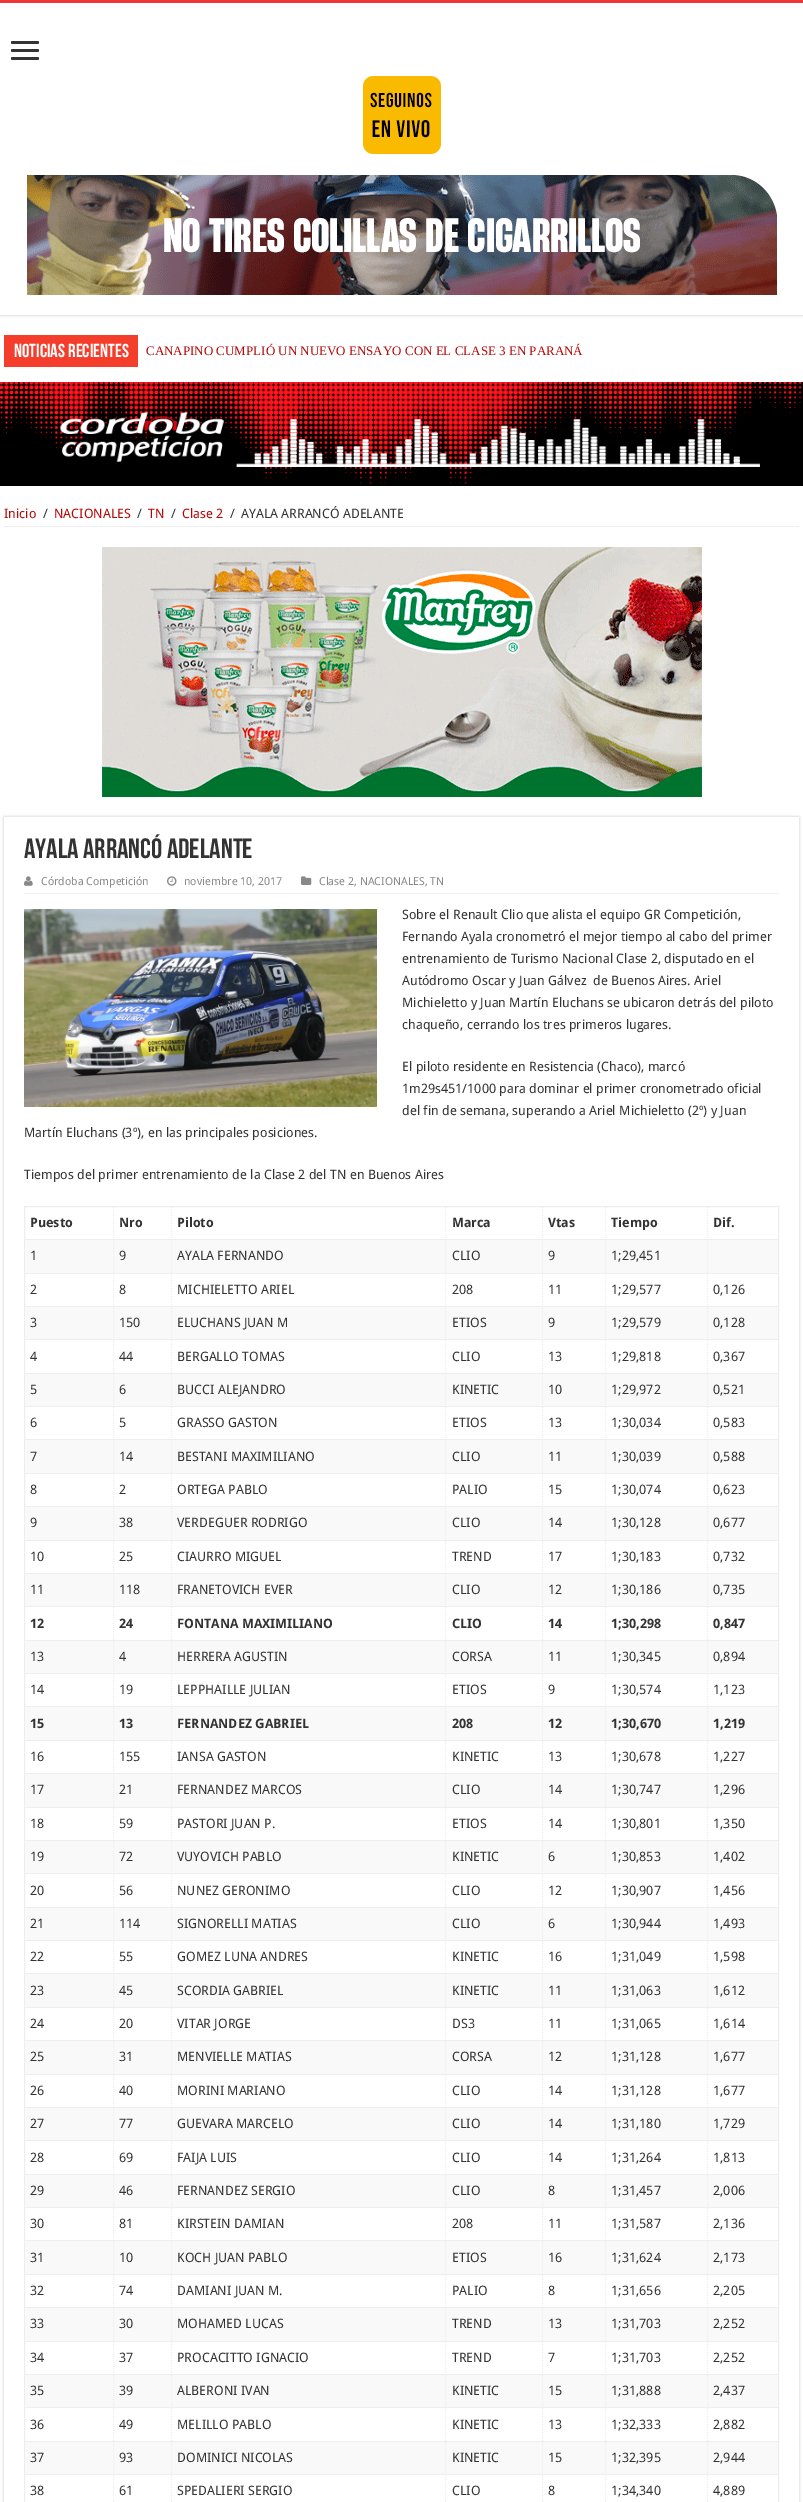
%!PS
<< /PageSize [803 2502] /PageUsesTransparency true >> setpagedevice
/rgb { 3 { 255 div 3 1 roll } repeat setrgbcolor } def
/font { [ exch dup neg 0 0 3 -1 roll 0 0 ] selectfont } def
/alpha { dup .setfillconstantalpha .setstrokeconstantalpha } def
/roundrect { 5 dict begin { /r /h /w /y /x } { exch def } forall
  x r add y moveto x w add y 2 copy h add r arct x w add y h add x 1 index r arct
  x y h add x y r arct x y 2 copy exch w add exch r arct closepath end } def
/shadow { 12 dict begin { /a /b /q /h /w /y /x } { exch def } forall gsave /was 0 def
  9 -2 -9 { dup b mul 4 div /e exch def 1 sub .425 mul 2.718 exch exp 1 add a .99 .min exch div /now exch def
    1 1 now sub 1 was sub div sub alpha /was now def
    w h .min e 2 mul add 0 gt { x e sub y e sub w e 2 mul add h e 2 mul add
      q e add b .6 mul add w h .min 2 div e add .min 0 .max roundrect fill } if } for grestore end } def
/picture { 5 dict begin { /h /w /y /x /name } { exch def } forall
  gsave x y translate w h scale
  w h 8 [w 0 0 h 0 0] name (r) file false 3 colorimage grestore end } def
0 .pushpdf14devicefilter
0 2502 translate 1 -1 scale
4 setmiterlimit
255 255 255 rgb
0 0 803 2502 rectfill
gsave
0 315 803 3 rectclip
202 202 202 rgb
0 0 803 315 0 1.5 1 shadow
grestore
239 54 54 rgb
0 0 803 3 rectfill
51 51 51 rgb
11 41 28 3 1.5 roundrect fill
11 49 28 3 1.5 roundrect fill
11 57 28 3 1.5 roundrect fill
(img/1.rgb) 363 76 78 78 picture
(img/2.rgb) 27 175 750 120 picture
244 61 42 rgb
4 335 134 32 rectfill
(img/3.rgb) 0 382 803 104 picture
238 238 238 rgb
4 526 795 1 rectfill
(img/4.rgb) 102 547 600 250 picture
gsave
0 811 moveto 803 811 lineto 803 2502 lineto 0 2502 lineto closepath 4 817 moveto 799 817 lineto 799 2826 lineto 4 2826 lineto closepath eoclip newpath
202 202 202 rgb
4 817 795 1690 0 1.5 1 shadow
grestore
242 242 242 rgb
24 893 755 1 rectfill
(img/5.rgb) 24 876 9 10 picture
(img/6.rgb) 167 876 10 10 picture
(img/7.rgb) 301 876 11 9 picture
(img/8.rgb) 24 909 353 198 picture
238 238 238 rgb
24.5 1206.5 754 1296 rectstroke
[1 1] 0 setdash
113.5 1207 moveto 113.5 1240 lineto stroke
25 1239 89 1 rectfill
171.5 1207 moveto 171.5 1240 lineto stroke
114 1239 58 1 rectfill
445.5 1207 moveto 445.5 1240 lineto stroke
172 1239 274 1 rectfill
542.5 1207 moveto 542.5 1240 lineto stroke
446 1239 97 1 rectfill
605.5 1207 moveto 605.5 1240 lineto stroke
543 1239 63 1 rectfill
707.5 1207 moveto 707.5 1240 lineto stroke
606 1239 172 1 rectfill
249 249 249 rgb
25 1240 753 33 rectfill
238 238 238 rgb
113.5 1240 moveto 113.5 1274 lineto stroke
25 1273 753 1 rectfill
171.5 1240 moveto 171.5 1274 lineto stroke
445.5 1240 moveto 445.5 1274 lineto stroke
542.5 1240 moveto 542.5 1274 lineto stroke
605.5 1240 moveto 605.5 1274 lineto stroke
707.5 1240 moveto 707.5 1274 lineto stroke
113.5 1274 moveto 113.5 1307 lineto stroke
25 1306 89 1 rectfill
171.5 1274 moveto 171.5 1307 lineto stroke
114 1306 58 1 rectfill
445.5 1274 moveto 445.5 1307 lineto stroke
172 1306 274 1 rectfill
542.5 1274 moveto 542.5 1307 lineto stroke
446 1306 97 1 rectfill
605.5 1274 moveto 605.5 1307 lineto stroke
543 1306 63 1 rectfill
707.5 1274 moveto 707.5 1307 lineto stroke
606 1306 172 1 rectfill
249 249 249 rgb
25 1307 753 32 rectfill
238 238 238 rgb
113.5 1307 moveto 113.5 1340 lineto stroke
25 1339 89 1 rectfill
171.5 1307 moveto 171.5 1340 lineto stroke
114 1339 58 1 rectfill
445.5 1307 moveto 445.5 1340 lineto stroke
172 1339 274 1 rectfill
542.5 1307 moveto 542.5 1340 lineto stroke
446 1339 97 1 rectfill
605.5 1307 moveto 605.5 1340 lineto stroke
543 1339 63 1 rectfill
707.5 1307 moveto 707.5 1340 lineto stroke
606 1339 172 1 rectfill
113.5 1340 moveto 113.5 1374 lineto stroke
25 1373 753 1 rectfill
171.5 1340 moveto 171.5 1374 lineto stroke
445.5 1340 moveto 445.5 1374 lineto stroke
542.5 1340 moveto 542.5 1374 lineto stroke
605.5 1340 moveto 605.5 1374 lineto stroke
707.5 1340 moveto 707.5 1374 lineto stroke
249 249 249 rgb
25 1374 753 32 rectfill
238 238 238 rgb
113.5 1374 moveto 113.5 1407 lineto stroke
25 1406 89 1 rectfill
171.5 1374 moveto 171.5 1407 lineto stroke
114 1406 58 1 rectfill
445.5 1374 moveto 445.5 1407 lineto stroke
172 1406 274 1 rectfill
542.5 1374 moveto 542.5 1407 lineto stroke
446 1406 97 1 rectfill
605.5 1374 moveto 605.5 1407 lineto stroke
543 1406 63 1 rectfill
707.5 1374 moveto 707.5 1407 lineto stroke
606 1406 172 1 rectfill
113.5 1407 moveto 113.5 1440 lineto stroke
25 1439 89 1 rectfill
171.5 1407 moveto 171.5 1440 lineto stroke
114 1439 58 1 rectfill
445.5 1407 moveto 445.5 1440 lineto stroke
172 1439 274 1 rectfill
542.5 1407 moveto 542.5 1440 lineto stroke
446 1439 97 1 rectfill
605.5 1407 moveto 605.5 1440 lineto stroke
543 1439 63 1 rectfill
707.5 1407 moveto 707.5 1440 lineto stroke
606 1439 172 1 rectfill
249 249 249 rgb
25 1440 753 33 rectfill
238 238 238 rgb
113.5 1440 moveto 113.5 1474 lineto stroke
25 1473 753 1 rectfill
171.5 1440 moveto 171.5 1474 lineto stroke
445.5 1440 moveto 445.5 1474 lineto stroke
542.5 1440 moveto 542.5 1474 lineto stroke
605.5 1440 moveto 605.5 1474 lineto stroke
707.5 1440 moveto 707.5 1474 lineto stroke
113.5 1474 moveto 113.5 1507 lineto stroke
25 1506 89 1 rectfill
171.5 1474 moveto 171.5 1507 lineto stroke
114 1506 58 1 rectfill
445.5 1474 moveto 445.5 1507 lineto stroke
172 1506 274 1 rectfill
542.5 1474 moveto 542.5 1507 lineto stroke
446 1506 97 1 rectfill
605.5 1474 moveto 605.5 1507 lineto stroke
543 1506 63 1 rectfill
707.5 1474 moveto 707.5 1507 lineto stroke
606 1506 172 1 rectfill
249 249 249 rgb
25 1507 753 33 rectfill
238 238 238 rgb
113.5 1507 moveto 113.5 1541 lineto stroke
25 1540 753 1 rectfill
171.5 1507 moveto 171.5 1541 lineto stroke
445.5 1507 moveto 445.5 1541 lineto stroke
542.5 1507 moveto 542.5 1541 lineto stroke
605.5 1507 moveto 605.5 1541 lineto stroke
707.5 1507 moveto 707.5 1541 lineto stroke
113.5 1541 moveto 113.5 1574 lineto stroke
25 1573 89 1 rectfill
171.5 1541 moveto 171.5 1574 lineto stroke
114 1573 58 1 rectfill
445.5 1541 moveto 445.5 1574 lineto stroke
172 1573 274 1 rectfill
542.5 1541 moveto 542.5 1574 lineto stroke
446 1573 97 1 rectfill
605.5 1541 moveto 605.5 1574 lineto stroke
543 1573 63 1 rectfill
707.5 1541 moveto 707.5 1574 lineto stroke
606 1573 172 1 rectfill
249 249 249 rgb
25 1574 753 32 rectfill
238 238 238 rgb
113.5 1574 moveto 113.5 1607 lineto stroke
25 1606 89 1 rectfill
171.5 1574 moveto 171.5 1607 lineto stroke
114 1606 58 1 rectfill
445.5 1574 moveto 445.5 1607 lineto stroke
172 1606 274 1 rectfill
542.5 1574 moveto 542.5 1607 lineto stroke
446 1606 97 1 rectfill
605.5 1574 moveto 605.5 1607 lineto stroke
543 1606 63 1 rectfill
707.5 1574 moveto 707.5 1607 lineto stroke
606 1606 172 1 rectfill
113.5 1607 moveto 113.5 1641 lineto stroke
25 1640 753 1 rectfill
171.5 1607 moveto 171.5 1641 lineto stroke
445.5 1607 moveto 445.5 1641 lineto stroke
542.5 1607 moveto 542.5 1641 lineto stroke
605.5 1607 moveto 605.5 1641 lineto stroke
707.5 1607 moveto 707.5 1641 lineto stroke
249 249 249 rgb
25 1641 753 32 rectfill
238 238 238 rgb
113.5 1641 moveto 113.5 1674 lineto stroke
25 1673 89 1 rectfill
171.5 1641 moveto 171.5 1674 lineto stroke
114 1673 58 1 rectfill
445.5 1641 moveto 445.5 1674 lineto stroke
172 1673 274 1 rectfill
542.5 1641 moveto 542.5 1674 lineto stroke
446 1673 97 1 rectfill
605.5 1641 moveto 605.5 1674 lineto stroke
543 1673 63 1 rectfill
707.5 1641 moveto 707.5 1674 lineto stroke
606 1673 172 1 rectfill
113.5 1674 moveto 113.5 1707 lineto stroke
25 1706 89 1 rectfill
171.5 1674 moveto 171.5 1707 lineto stroke
114 1706 58 1 rectfill
445.5 1674 moveto 445.5 1707 lineto stroke
172 1706 274 1 rectfill
542.5 1674 moveto 542.5 1707 lineto stroke
446 1706 97 1 rectfill
605.5 1674 moveto 605.5 1707 lineto stroke
543 1706 63 1 rectfill
707.5 1674 moveto 707.5 1707 lineto stroke
606 1706 172 1 rectfill
249 249 249 rgb
25 1707 753 33 rectfill
238 238 238 rgb
113.5 1707 moveto 113.5 1741 lineto stroke
25 1740 753 1 rectfill
171.5 1707 moveto 171.5 1741 lineto stroke
445.5 1707 moveto 445.5 1741 lineto stroke
542.5 1707 moveto 542.5 1741 lineto stroke
605.5 1707 moveto 605.5 1741 lineto stroke
707.5 1707 moveto 707.5 1741 lineto stroke
113.5 1741 moveto 113.5 1774 lineto stroke
25 1773 89 1 rectfill
171.5 1741 moveto 171.5 1774 lineto stroke
114 1773 58 1 rectfill
445.5 1741 moveto 445.5 1774 lineto stroke
172 1773 274 1 rectfill
542.5 1741 moveto 542.5 1774 lineto stroke
446 1773 97 1 rectfill
605.5 1741 moveto 605.5 1774 lineto stroke
543 1773 63 1 rectfill
707.5 1741 moveto 707.5 1774 lineto stroke
606 1773 172 1 rectfill
249 249 249 rgb
25 1774 753 33 rectfill
238 238 238 rgb
113.5 1774 moveto 113.5 1808 lineto stroke
25 1807 753 1 rectfill
171.5 1774 moveto 171.5 1808 lineto stroke
445.5 1774 moveto 445.5 1808 lineto stroke
542.5 1774 moveto 542.5 1808 lineto stroke
605.5 1774 moveto 605.5 1808 lineto stroke
707.5 1774 moveto 707.5 1808 lineto stroke
113.5 1808 moveto 113.5 1841 lineto stroke
25 1840 89 1 rectfill
171.5 1808 moveto 171.5 1841 lineto stroke
114 1840 58 1 rectfill
445.5 1808 moveto 445.5 1841 lineto stroke
172 1840 274 1 rectfill
542.5 1808 moveto 542.5 1841 lineto stroke
446 1840 97 1 rectfill
605.5 1808 moveto 605.5 1841 lineto stroke
543 1840 63 1 rectfill
707.5 1808 moveto 707.5 1841 lineto stroke
606 1840 172 1 rectfill
249 249 249 rgb
25 1841 753 32 rectfill
238 238 238 rgb
113.5 1841 moveto 113.5 1874 lineto stroke
25 1873 89 1 rectfill
171.5 1841 moveto 171.5 1874 lineto stroke
114 1873 58 1 rectfill
445.5 1841 moveto 445.5 1874 lineto stroke
172 1873 274 1 rectfill
542.5 1841 moveto 542.5 1874 lineto stroke
446 1873 97 1 rectfill
605.5 1841 moveto 605.5 1874 lineto stroke
543 1873 63 1 rectfill
707.5 1841 moveto 707.5 1874 lineto stroke
606 1873 172 1 rectfill
113.5 1874 moveto 113.5 1908 lineto stroke
25 1907 753 1 rectfill
171.5 1874 moveto 171.5 1908 lineto stroke
445.5 1874 moveto 445.5 1908 lineto stroke
542.5 1874 moveto 542.5 1908 lineto stroke
605.5 1874 moveto 605.5 1908 lineto stroke
707.5 1874 moveto 707.5 1908 lineto stroke
249 249 249 rgb
25 1908 753 32 rectfill
238 238 238 rgb
113.5 1908 moveto 113.5 1941 lineto stroke
25 1940 89 1 rectfill
171.5 1908 moveto 171.5 1941 lineto stroke
114 1940 58 1 rectfill
445.5 1908 moveto 445.5 1941 lineto stroke
172 1940 274 1 rectfill
542.5 1908 moveto 542.5 1941 lineto stroke
446 1940 97 1 rectfill
605.5 1908 moveto 605.5 1941 lineto stroke
543 1940 63 1 rectfill
707.5 1908 moveto 707.5 1941 lineto stroke
606 1940 172 1 rectfill
113.5 1941 moveto 113.5 1974 lineto stroke
25 1973 89 1 rectfill
171.5 1941 moveto 171.5 1974 lineto stroke
114 1973 58 1 rectfill
445.5 1941 moveto 445.5 1974 lineto stroke
172 1973 274 1 rectfill
542.5 1941 moveto 542.5 1974 lineto stroke
446 1973 97 1 rectfill
605.5 1941 moveto 605.5 1974 lineto stroke
543 1973 63 1 rectfill
707.5 1941 moveto 707.5 1974 lineto stroke
606 1973 172 1 rectfill
249 249 249 rgb
25 1974 753 33 rectfill
238 238 238 rgb
113.5 1974 moveto 113.5 2008 lineto stroke
25 2007 753 1 rectfill
171.5 1974 moveto 171.5 2008 lineto stroke
445.5 1974 moveto 445.5 2008 lineto stroke
542.5 1974 moveto 542.5 2008 lineto stroke
605.5 1974 moveto 605.5 2008 lineto stroke
707.5 1974 moveto 707.5 2008 lineto stroke
113.5 2008 moveto 113.5 2041 lineto stroke
25 2040 89 1 rectfill
171.5 2008 moveto 171.5 2041 lineto stroke
114 2040 58 1 rectfill
445.5 2008 moveto 445.5 2041 lineto stroke
172 2040 274 1 rectfill
542.5 2008 moveto 542.5 2041 lineto stroke
446 2040 97 1 rectfill
605.5 2008 moveto 605.5 2041 lineto stroke
543 2040 63 1 rectfill
707.5 2008 moveto 707.5 2041 lineto stroke
606 2040 172 1 rectfill
249 249 249 rgb
25 2041 753 33 rectfill
238 238 238 rgb
113.5 2041 moveto 113.5 2075 lineto stroke
25 2074 753 1 rectfill
171.5 2041 moveto 171.5 2075 lineto stroke
445.5 2041 moveto 445.5 2075 lineto stroke
542.5 2041 moveto 542.5 2075 lineto stroke
605.5 2041 moveto 605.5 2075 lineto stroke
707.5 2041 moveto 707.5 2075 lineto stroke
113.5 2075 moveto 113.5 2108 lineto stroke
25 2107 89 1 rectfill
171.5 2075 moveto 171.5 2108 lineto stroke
114 2107 58 1 rectfill
445.5 2075 moveto 445.5 2108 lineto stroke
172 2107 274 1 rectfill
542.5 2075 moveto 542.5 2108 lineto stroke
446 2107 97 1 rectfill
605.5 2075 moveto 605.5 2108 lineto stroke
543 2107 63 1 rectfill
707.5 2075 moveto 707.5 2108 lineto stroke
606 2107 172 1 rectfill
249 249 249 rgb
25 2108 753 32 rectfill
238 238 238 rgb
113.5 2108 moveto 113.5 2141 lineto stroke
25 2140 89 1 rectfill
171.5 2108 moveto 171.5 2141 lineto stroke
114 2140 58 1 rectfill
445.5 2108 moveto 445.5 2141 lineto stroke
172 2140 274 1 rectfill
542.5 2108 moveto 542.5 2141 lineto stroke
446 2140 97 1 rectfill
605.5 2108 moveto 605.5 2141 lineto stroke
543 2140 63 1 rectfill
707.5 2108 moveto 707.5 2141 lineto stroke
606 2140 172 1 rectfill
113.5 2141 moveto 113.5 2175 lineto stroke
25 2174 753 1 rectfill
171.5 2141 moveto 171.5 2175 lineto stroke
445.5 2141 moveto 445.5 2175 lineto stroke
542.5 2141 moveto 542.5 2175 lineto stroke
605.5 2141 moveto 605.5 2175 lineto stroke
707.5 2141 moveto 707.5 2175 lineto stroke
249 249 249 rgb
25 2175 753 32 rectfill
238 238 238 rgb
113.5 2175 moveto 113.5 2208 lineto stroke
25 2207 89 1 rectfill
171.5 2175 moveto 171.5 2208 lineto stroke
114 2207 58 1 rectfill
445.5 2175 moveto 445.5 2208 lineto stroke
172 2207 274 1 rectfill
542.5 2175 moveto 542.5 2208 lineto stroke
446 2207 97 1 rectfill
605.5 2175 moveto 605.5 2208 lineto stroke
543 2207 63 1 rectfill
707.5 2175 moveto 707.5 2208 lineto stroke
606 2207 172 1 rectfill
113.5 2208 moveto 113.5 2241 lineto stroke
25 2240 89 1 rectfill
171.5 2208 moveto 171.5 2241 lineto stroke
114 2240 58 1 rectfill
445.5 2208 moveto 445.5 2241 lineto stroke
172 2240 274 1 rectfill
542.5 2208 moveto 542.5 2241 lineto stroke
446 2240 97 1 rectfill
605.5 2208 moveto 605.5 2241 lineto stroke
543 2240 63 1 rectfill
707.5 2208 moveto 707.5 2241 lineto stroke
606 2240 172 1 rectfill
249 249 249 rgb
25 2241 753 33 rectfill
238 238 238 rgb
113.5 2241 moveto 113.5 2275 lineto stroke
25 2274 753 1 rectfill
171.5 2241 moveto 171.5 2275 lineto stroke
445.5 2241 moveto 445.5 2275 lineto stroke
542.5 2241 moveto 542.5 2275 lineto stroke
605.5 2241 moveto 605.5 2275 lineto stroke
707.5 2241 moveto 707.5 2275 lineto stroke
113.5 2275 moveto 113.5 2308 lineto stroke
25 2307 89 1 rectfill
171.5 2275 moveto 171.5 2308 lineto stroke
114 2307 58 1 rectfill
445.5 2275 moveto 445.5 2308 lineto stroke
172 2307 274 1 rectfill
542.5 2275 moveto 542.5 2308 lineto stroke
446 2307 97 1 rectfill
605.5 2275 moveto 605.5 2308 lineto stroke
543 2307 63 1 rectfill
707.5 2275 moveto 707.5 2308 lineto stroke
606 2307 172 1 rectfill
249 249 249 rgb
25 2308 753 33 rectfill
238 238 238 rgb
113.5 2308 moveto 113.5 2342 lineto stroke
25 2341 753 1 rectfill
171.5 2308 moveto 171.5 2342 lineto stroke
445.5 2308 moveto 445.5 2342 lineto stroke
542.5 2308 moveto 542.5 2342 lineto stroke
605.5 2308 moveto 605.5 2342 lineto stroke
707.5 2308 moveto 707.5 2342 lineto stroke
113.5 2342 moveto 113.5 2375 lineto stroke
25 2374 89 1 rectfill
171.5 2342 moveto 171.5 2375 lineto stroke
114 2374 58 1 rectfill
445.5 2342 moveto 445.5 2375 lineto stroke
172 2374 274 1 rectfill
542.5 2342 moveto 542.5 2375 lineto stroke
446 2374 97 1 rectfill
605.5 2342 moveto 605.5 2375 lineto stroke
543 2374 63 1 rectfill
707.5 2342 moveto 707.5 2375 lineto stroke
606 2374 172 1 rectfill
249 249 249 rgb
25 2375 753 32 rectfill
238 238 238 rgb
113.5 2375 moveto 113.5 2408 lineto stroke
25 2407 89 1 rectfill
171.5 2375 moveto 171.5 2408 lineto stroke
114 2407 58 1 rectfill
445.5 2375 moveto 445.5 2408 lineto stroke
172 2407 274 1 rectfill
542.5 2375 moveto 542.5 2408 lineto stroke
446 2407 97 1 rectfill
605.5 2375 moveto 605.5 2408 lineto stroke
543 2407 63 1 rectfill
707.5 2375 moveto 707.5 2408 lineto stroke
606 2407 172 1 rectfill
113.5 2408 moveto 113.5 2442 lineto stroke
25 2441 753 1 rectfill
171.5 2408 moveto 171.5 2442 lineto stroke
445.5 2408 moveto 445.5 2442 lineto stroke
542.5 2408 moveto 542.5 2442 lineto stroke
605.5 2408 moveto 605.5 2442 lineto stroke
707.5 2408 moveto 707.5 2442 lineto stroke
249 249 249 rgb
25 2442 753 32 rectfill
238 238 238 rgb
113.5 2442 moveto 113.5 2475 lineto stroke
25 2474 89 1 rectfill
171.5 2442 moveto 171.5 2475 lineto stroke
114 2474 58 1 rectfill
445.5 2442 moveto 445.5 2475 lineto stroke
172 2474 274 1 rectfill
542.5 2442 moveto 542.5 2475 lineto stroke
446 2474 97 1 rectfill
605.5 2442 moveto 605.5 2475 lineto stroke
543 2474 63 1 rectfill
707.5 2442 moveto 707.5 2475 lineto stroke
606 2474 172 1 rectfill
113.5 2475 moveto 113.5 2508 lineto 171.5 2475 moveto 171.5 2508 lineto stroke
445.5 2475 moveto 445.5 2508 lineto stroke
542.5 2475 moveto 542.5 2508 lineto stroke
605.5 2475 moveto 605.5 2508 lineto stroke
707.5 2475 moveto 707.5 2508 lineto stroke
/BebasNeue-Bold 18.75 font
255 255 255 rgb
14 357 moveto (Noticias recientes) show
/LiberationSerif-Regular 13 font
181 6 6 rgb
146 355 moveto (CANAPINO CUMPLIÓ UN NUEVO ENSAYO CON EL CLASE 3 EN PARANÁ) show
/DroidSans-Regular 13 font
4 518 moveto (Inicio) show
51 51 51 rgb
43 518 moveto (/) show
181 6 6 rgb
54 518 moveto (NACIONALES) show
51 51 51 rgb
137 518 moveto (/) show
181 6 6 rgb
148 518 moveto (TN) show
51 51 51 rgb
171 518 moveto (/) show
181 6 6 rgb
182 518 moveto (Clase 2) show
51 51 51 rgb
230 518 moveto (/) show
241 518 moveto (AYALA ARRANCÓ ADELANTE) show
/BebasNeue-Bold 28 font
24 858 moveto (AYALA ARRANCÓ ADELANTE) show
/DroidSans-Regular 11 font
136 136 136 rgb
[
  [(Córdoba Competición) 41 885]
  [(noviembre 10, 2017) 184 885]
  [(Clase 2, NACIONALES, TN) 319 885]
] { aload pop moveto show } forall
/DroidSans-Regular 13 font
51 51 51 rgb
[
  [(Sobre el Renault Clio que alista el equipo GR Competición,) 402 919]
  [(Fernando Ayala cronometró el mejor tiempo al cabo del primer) 402 941]
  [(entrenamiento de Turismo Nacional Clase 2, disputado en el) 402 963]
  [(Autódromo Oscar y Juan Gálvez  de Buenos Aires. Ariel) 402 985]
  [(Michieletto y Juan Martín Eluchans se ubicaron detrás del piloto) 402 1007]
  [(chaqueño, cerrando los tres primeros lugares.) 402 1029]
  [(El piloto residente en Resistencia \(Chaco\), marcó) 402 1071]
  [(1m29s451/1000 para dominar el primer cronometrado oficial) 402 1093]
  [(del fin de semana, superando a Ariel Michieletto \(2º\) y Juan) 402 1115]
  [(Martín Eluchans \(3º\), en las principales posiciones.) 24 1137]
  [(Tiempos del primer entrenamiento de la Clase 2 del TN en Buenos Aires) 24 1179]
] { aload pop moveto show } forall
/DroidSans-Bold 13 font
[
  [(Puesto) 30 1227]
  [(Nro) 119 1227]
  [(Piloto) 177 1227]
  [(Marca) 452 1227]
  [(Vtas) 548 1227]
  [(Tiempo) 611 1227]
  [(Dif.) 713 1227]
] { aload pop moveto show } forall
/DroidSans-Regular 13 font
[
  [(1) 30 1260]
  [(9) 119 1260]
  [(AYALA FERNANDO) 177 1260]
  [(CLIO) 452 1260]
  [(9) 548 1260]
  [(1;29,451) 611 1260]
  [(2) 30 1294]
  [(8) 119 1294]
  [(MICHIELETTO ARIEL) 177 1294]
  [(208) 452 1294]
  [(11) 548 1294]
  [(1;29,577) 611 1294]
  [(0,126) 713 1294]
  [(3) 30 1327]
  [(150) 119 1327]
  [(ELUCHANS JUAN M) 177 1327]
  [(ETIOS) 452 1327]
  [(9) 548 1327]
  [(1;29,579) 611 1327]
  [(0,128) 713 1327]
  [(4) 30 1361]
  [(44) 119 1361]
  [(BERGALLO TOMAS) 177 1361]
  [(CLIO) 452 1361]
  [(13) 548 1361]
  [(1;29,818) 611 1361]
  [(0,367) 713 1361]
  [(5) 30 1394]
  [(6) 119 1394]
  [(BUCCI ALEJANDRO) 177 1394]
  [(KINETIC) 452 1394]
  [(10) 548 1394]
  [(1;29,972) 611 1394]
  [(0,521) 713 1394]
  [(6) 30 1427]
  [(5) 119 1427]
  [(GRASSO GASTON) 177 1427]
  [(ETIOS) 452 1427]
  [(13) 548 1427]
  [(1;30,034) 611 1427]
  [(0,583) 713 1427]
  [(7) 30 1461]
  [(14) 119 1461]
  [(BESTANI MAXIMILIANO) 177 1461]
  [(CLIO) 452 1461]
  [(11) 548 1461]
  [(1;30,039) 611 1461]
  [(0,588) 713 1461]
  [(8) 30 1494]
  [(2) 119 1494]
  [(ORTEGA PABLO) 177 1494]
  [(PALIO) 452 1494]
  [(15) 548 1494]
  [(1;30,074) 611 1494]
  [(0,623) 713 1494]
  [(9) 30 1527]
  [(38) 119 1527]
  [(VERDEGUER RODRIGO) 177 1527]
  [(CLIO) 452 1527]
  [(14) 548 1527]
  [(1;30,128) 611 1527]
  [(0,677) 713 1527]
  [(10) 30 1561]
  [(25) 119 1561]
  [(CIAURRO MIGUEL) 177 1561]
  [(TREND) 452 1561]
  [(17) 548 1561]
  [(1;30,183) 611 1561]
  [(0,732) 713 1561]
  [(11) 30 1594]
  [(118) 119 1594]
  [(FRANETOVICH EVER) 177 1594]
  [(CLIO) 452 1594]
  [(12) 548 1594]
  [(1;30,186) 611 1594]
  [(0,735) 713 1594]
] { aload pop moveto show } forall
/DroidSans-Bold 13 font
[
  [(12) 30 1628]
  [(24) 119 1628]
  [(FONTANA MAXIMILIANO) 177 1628]
  [(CLIO) 452 1628]
  [(14) 548 1628]
  [(1;30,298) 611 1628]
  [(0,847) 713 1628]
] { aload pop moveto show } forall
/DroidSans-Regular 13 font
[
  [(13) 30 1661]
  [(4) 119 1661]
  [(HERRERA AGUSTIN) 177 1661]
  [(CORSA) 452 1661]
  [(11) 548 1661]
  [(1;30,345) 611 1661]
  [(0,894) 713 1661]
  [(14) 30 1694]
  [(19) 119 1694]
  [(LEPPHAILLE JULIAN) 177 1694]
  [(ETIOS) 452 1694]
  [(9) 548 1694]
  [(1;30,574) 611 1694]
  [(1,123) 713 1694]
] { aload pop moveto show } forall
/DroidSans-Bold 13 font
[
  [(15) 30 1728]
  [(13) 119 1728]
  [(FERNANDEZ GABRIEL) 177 1728]
  [(208) 452 1728]
  [(12) 548 1728]
  [(1;30,670) 611 1728]
  [(1,219) 713 1728]
] { aload pop moveto show } forall
/DroidSans-Regular 13 font
[
  [(16) 30 1761]
  [(155) 119 1761]
  [(IANSA GASTON) 177 1761]
  [(KINETIC) 452 1761]
  [(13) 548 1761]
  [(1;30,678) 611 1761]
  [(1,227) 713 1761]
  [(17) 30 1794]
  [(21) 119 1794]
  [(FERNANDEZ MARCOS) 177 1794]
  [(CLIO) 452 1794]
  [(14) 548 1794]
  [(1;30,747) 611 1794]
  [(1,296) 713 1794]
  [(18) 30 1828]
  [(59) 119 1828]
  [(PASTORI JUAN P.) 177 1828]
  [(ETIOS) 452 1828]
  [(14) 548 1828]
  [(1;30,801) 611 1828]
  [(1,350) 713 1828]
  [(19) 30 1861]
  [(72) 119 1861]
  [(VUYOVICH PABLO) 177 1861]
  [(KINETIC) 452 1861]
  [(6) 548 1861]
  [(1;30,853) 611 1861]
  [(1,402) 713 1861]
  [(20) 30 1895]
  [(56) 119 1895]
  [(NUNEZ GERONIMO) 177 1895]
  [(CLIO) 452 1895]
  [(12) 548 1895]
  [(1;30,907) 611 1895]
  [(1,456) 713 1895]
  [(21) 30 1928]
  [(114) 119 1928]
  [(SIGNORELLI MATIAS) 177 1928]
  [(CLIO) 452 1928]
  [(6) 548 1928]
  [(1;30,944) 611 1928]
  [(1,493) 713 1928]
  [(22) 30 1961]
  [(55) 119 1961]
  [(GOMEZ LUNA ANDRES) 177 1961]
  [(KINETIC) 452 1961]
  [(16) 548 1961]
  [(1;31,049) 611 1961]
  [(1,598) 713 1961]
  [(23) 30 1995]
  [(45) 119 1995]
  [(SCORDIA GABRIEL) 177 1995]
  [(KINETIC) 452 1995]
  [(11) 548 1995]
  [(1;31,063) 611 1995]
  [(1,612) 713 1995]
  [(24) 30 2028]
  [(20) 119 2028]
  [(VITAR JORGE) 177 2028]
  [(DS3) 452 2028]
  [(11) 548 2028]
  [(1;31,065) 611 2028]
  [(1,614) 713 2028]
  [(25) 30 2061]
  [(31) 119 2061]
  [(MENVIELLE MATIAS) 177 2061]
  [(CORSA) 452 2061]
  [(12) 548 2061]
  [(1;31,128) 611 2061]
  [(1,677) 713 2061]
  [(26) 30 2095]
  [(40) 119 2095]
  [(MORINI MARIANO) 177 2095]
  [(CLIO) 452 2095]
  [(14) 548 2095]
  [(1;31,128) 611 2095]
  [(1,677) 713 2095]
  [(27) 30 2128]
  [(77) 119 2128]
  [(GUEVARA MARCELO) 177 2128]
  [(CLIO) 452 2128]
  [(14) 548 2128]
  [(1;31,180) 611 2128]
  [(1,729) 713 2128]
  [(28) 30 2162]
  [(69) 119 2162]
  [(FAIJA LUIS) 177 2162]
  [(CLIO) 452 2162]
  [(14) 548 2162]
  [(1;31,264) 611 2162]
  [(1,813) 713 2162]
  [(29) 30 2195]
  [(46) 119 2195]
  [(FERNANDEZ SERGIO) 177 2195]
  [(CLIO) 452 2195]
  [(8) 548 2195]
  [(1;31,457) 611 2195]
  [(2,006) 713 2195]
  [(30) 30 2228]
  [(81) 119 2228]
  [(KIRSTEIN DAMIAN) 177 2228]
  [(208) 452 2228]
  [(11) 548 2228]
  [(1;31,587) 611 2228]
  [(2,136) 713 2228]
  [(31) 30 2262]
  [(10) 119 2262]
  [(KOCH JUAN PABLO) 177 2262]
  [(ETIOS) 452 2262]
  [(16) 548 2262]
  [(1;31,624) 611 2262]
  [(2,173) 713 2262]
  [(32) 30 2295]
  [(74) 119 2295]
  [(DAMIANI JUAN M.) 177 2295]
  [(PALIO) 452 2295]
  [(8) 548 2295]
  [(1;31,656) 611 2295]
  [(2,205) 713 2295]
  [(33) 30 2328]
  [(30) 119 2328]
  [(MOHAMED LUCAS) 177 2328]
  [(TREND) 452 2328]
  [(13) 548 2328]
  [(1;31,703) 611 2328]
  [(2,252) 713 2328]
  [(34) 30 2362]
  [(37) 119 2362]
  [(PROCACITTO IGNACIO) 177 2362]
  [(TREND) 452 2362]
  [(7) 548 2362]
  [(1;31,703) 611 2362]
  [(2,252) 713 2362]
  [(35) 30 2395]
  [(39) 119 2395]
  [(ALBERONI IVAN) 177 2395]
  [(KINETIC) 452 2395]
  [(15) 548 2395]
  [(1;31,888) 611 2395]
  [(2,437) 713 2395]
  [(36) 30 2429]
  [(49) 119 2429]
  [(MELILLO PABLO) 177 2429]
  [(KINETIC) 452 2429]
  [(13) 548 2429]
  [(1;32,333) 611 2429]
  [(2,882) 713 2429]
  [(37) 30 2462]
  [(93) 119 2462]
  [(DOMINICI NICOLAS) 177 2462]
  [(KINETIC) 452 2462]
  [(15) 548 2462]
  [(1;32,395) 611 2462]
  [(2,944) 713 2462]
  [(38) 30 2495]
  [(61) 119 2495]
  [(SPEDALIERI SERGIO) 177 2495]
  [(CLIO) 452 2495]
  [(8) 548 2495]
  [(1;34,340) 611 2495]
  [(4,889) 713 2495]
] { aload pop moveto show } forall
.poppdf14devicefilter showpage
